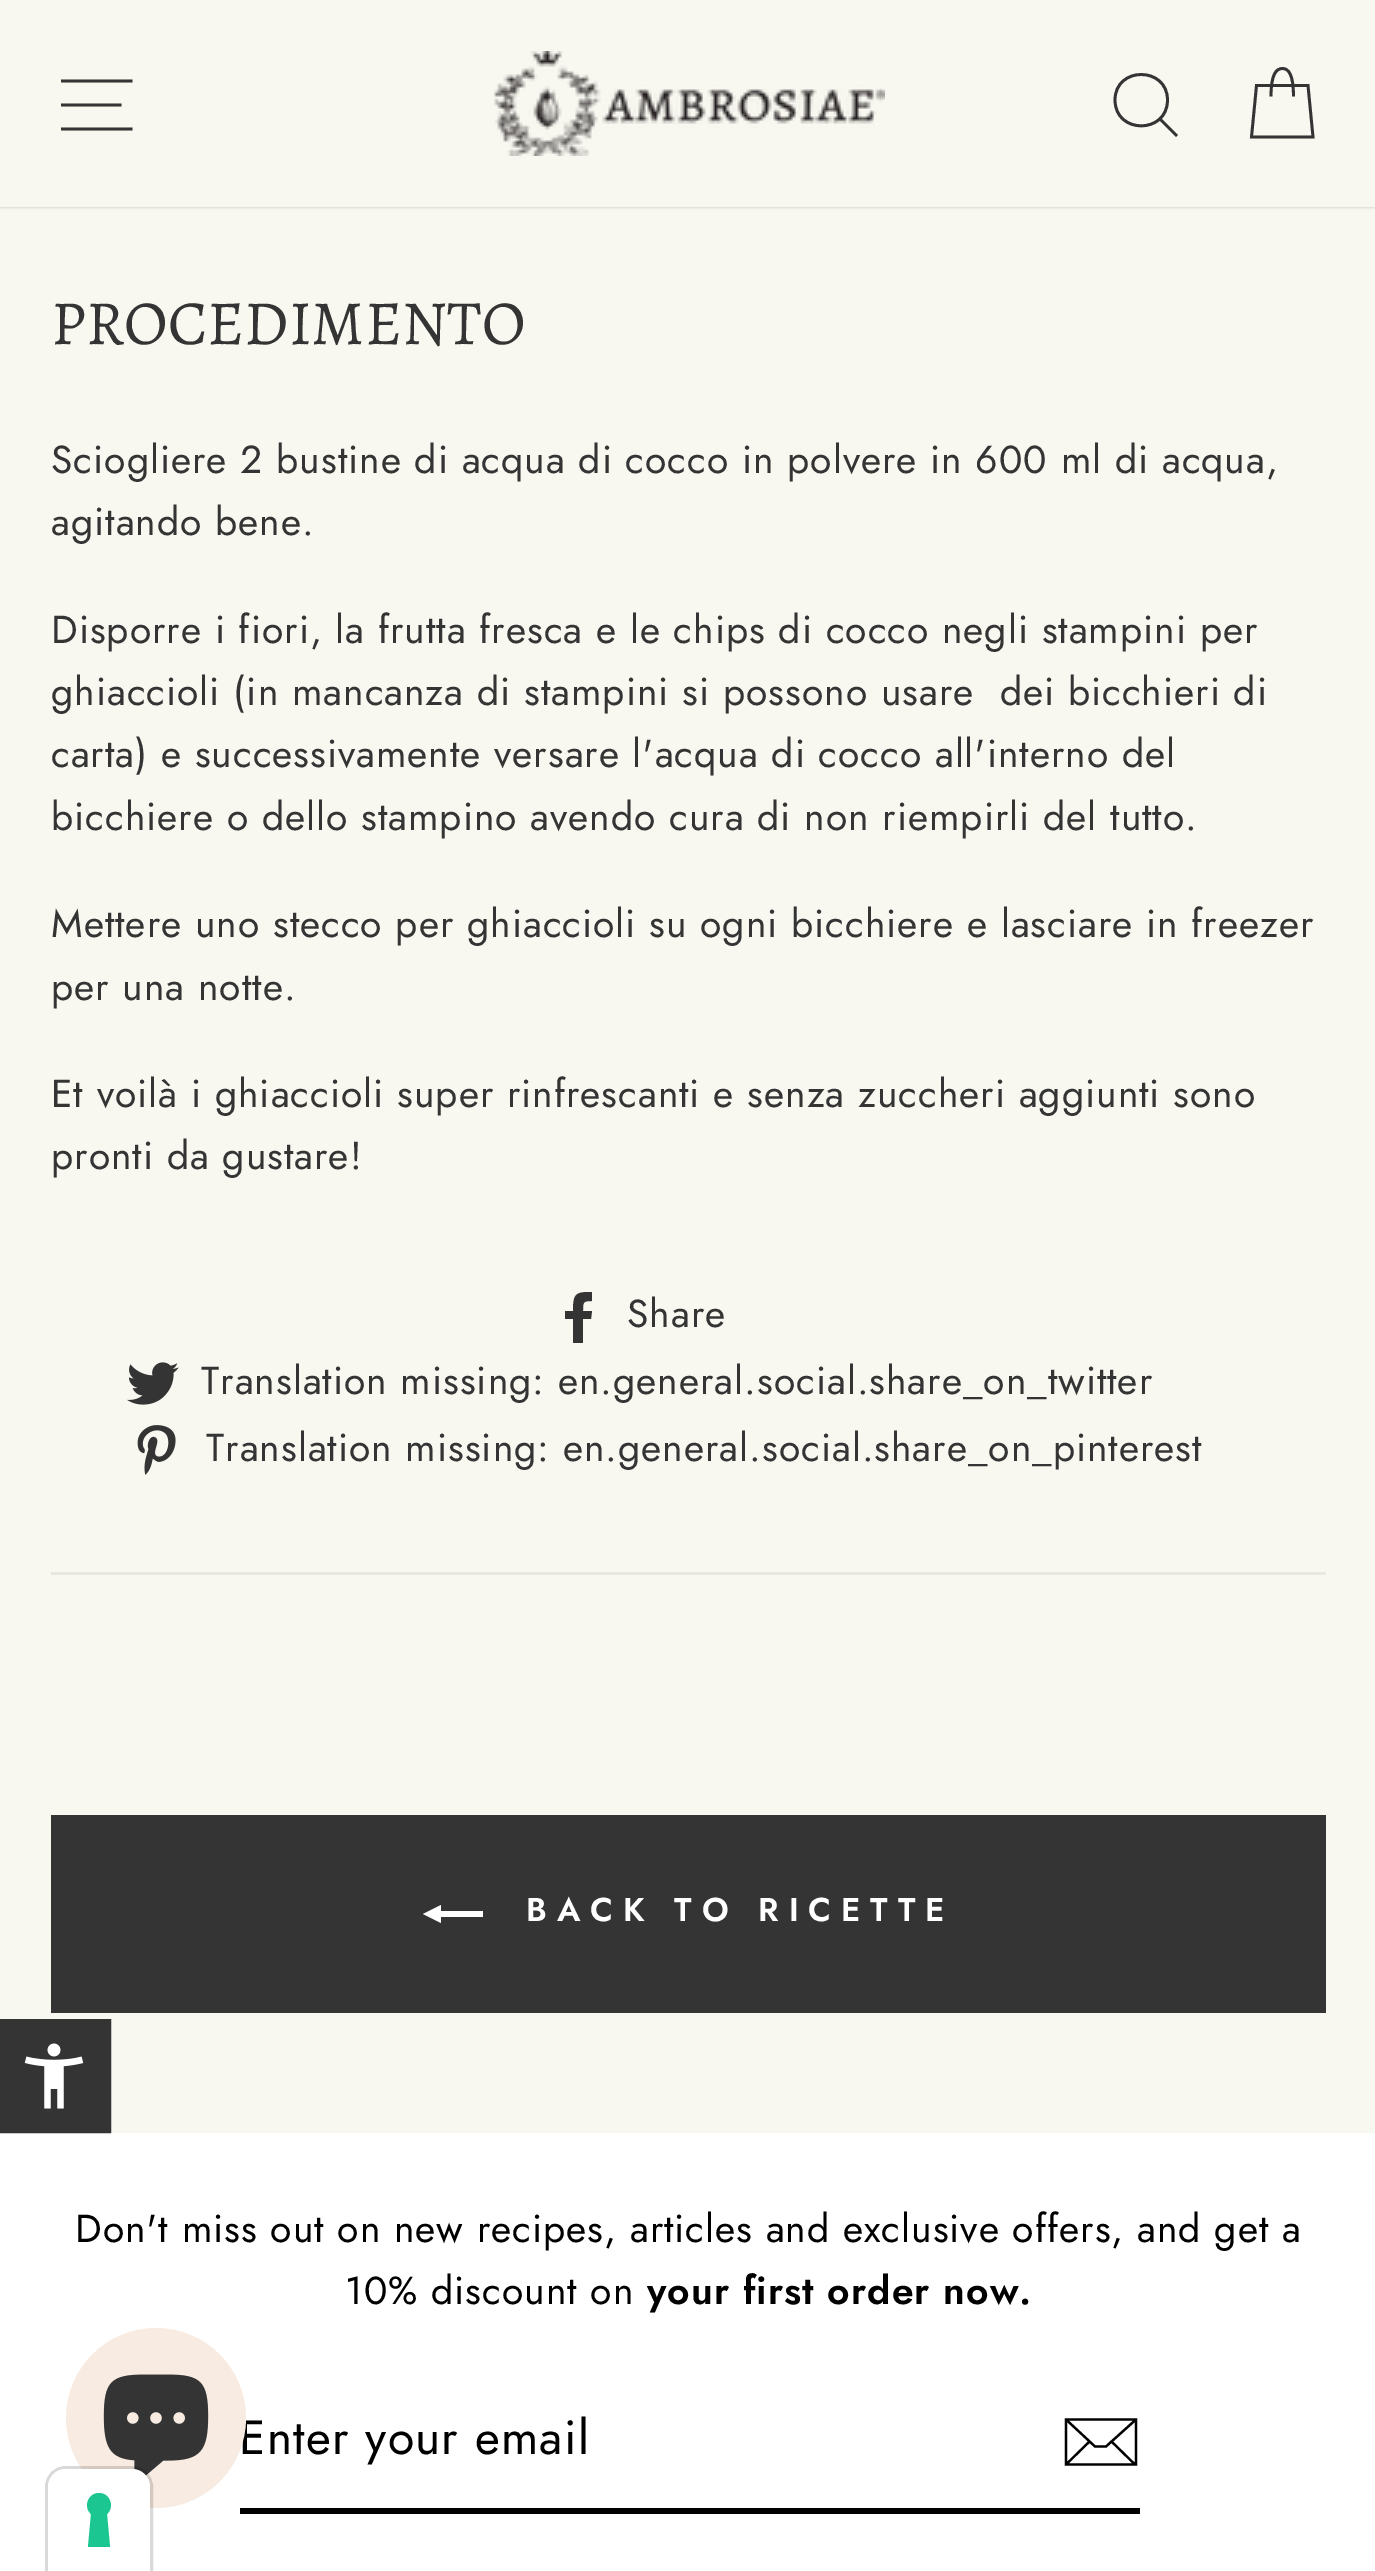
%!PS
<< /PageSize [1375 2571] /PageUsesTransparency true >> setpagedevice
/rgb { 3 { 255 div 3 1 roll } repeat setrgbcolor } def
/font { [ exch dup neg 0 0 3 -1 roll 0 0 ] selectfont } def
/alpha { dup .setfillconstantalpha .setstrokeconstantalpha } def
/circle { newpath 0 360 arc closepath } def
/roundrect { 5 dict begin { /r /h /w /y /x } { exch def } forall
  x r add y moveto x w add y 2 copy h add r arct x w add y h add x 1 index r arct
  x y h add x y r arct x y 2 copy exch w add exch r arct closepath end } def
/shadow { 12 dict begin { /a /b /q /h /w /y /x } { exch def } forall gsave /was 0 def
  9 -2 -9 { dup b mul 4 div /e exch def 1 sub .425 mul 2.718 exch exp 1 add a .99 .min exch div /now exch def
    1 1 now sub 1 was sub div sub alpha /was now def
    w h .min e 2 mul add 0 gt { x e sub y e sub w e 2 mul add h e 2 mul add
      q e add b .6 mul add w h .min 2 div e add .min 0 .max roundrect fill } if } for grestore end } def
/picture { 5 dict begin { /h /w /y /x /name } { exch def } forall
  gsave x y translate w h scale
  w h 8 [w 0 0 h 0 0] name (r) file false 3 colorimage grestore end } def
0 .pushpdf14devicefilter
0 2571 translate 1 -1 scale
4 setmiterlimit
248 248 241 rgb
0 0 1375 2571 rectfill
0 0 0 rgb
0 0 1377 207 0 1.5 0.2 shadow
248 248 241 rgb
0 0 1375 207 rectfill
52 52 52 rgb
2.8 setlinewidth
61 81 moveto 132.5 81 lineto 61 105 moveto 121.5 105 lineto 61 129 moveto 132.5 129 lineto stroke
(img/1.rgb) 494 51 391 105 picture
1167.5 100 moveto 1167.5 134.5 1115 134.5 1115 100 curveto 1115 66 1167.5 66 1167.5 100 curveto closepath 1177 136 moveto 1160 119 lineto stroke
1271 96.5 moveto 1271 74.5 1276 68.5 1282.5 68.5 curveto 1288.5 68.5 1293.5 74.5 1293.5 96.5 curveto stroke
1256.5 85.5 moveto 1308 85.5 lineto 1313 137 lineto 1251.5 137 lineto closepath stroke
583 1343 moveto 583 1319 lineto 591 1319 lineto 592 1311 lineto 583 1311 lineto 583 1302 583 1301 592 1301 curveto 592 1292 lineto 576 1292 573 1293 573 1311 curveto 565 1311 lineto 565 1319 lineto 573 1319 lineto 573 1343 lineto closepath fill
(img/2.rgb) 127 1362 52 43 picture
(img/3.rgb) 137 1425 39 50 picture
232 232 225 rgb
51 1572 1275 3 rectfill
52 52 52 rgb
51 1815 1275 198 rectfill
255 255 255 rgb
483 1911 moveto 483 1917 lineto 441 1917 lineto 441 1923 lineto 423 1914 lineto 441 1905 lineto 441 1911 lineto closepath fill
0 2133 1375 438 rectfill
0 0 0 rgb
240 2508 900 6 rectfill
2.2 setlinewidth
1136 2464.5 moveto 1066 2464.5 lineto 1066 2419.5 lineto 1136 2419.5 lineto closepath 1066 2419.5 moveto 1095 2446.5 lineto 1106 2446.5 lineto 1136 2419.5 lineto 1089.5 2441.5 moveto 1067 2463.5 lineto 1135 2464.5 moveto 1111.5 2441.5 lineto stroke
52 52 52 rgb
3 2025 moveto 105 2025 lineto 105 2127 lineto 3 2127 lineto closepath gsave fill grestore
12 setlinewidth
stroke
(img/4.rgb) 24 2043 60 66 picture
/Alegreya-Regular 63 font
51 344 moveto (PROCEDIMENTO) show
/Jost-Regular 39 font
51 473 moveto 1.02 0 (Sciogliere 2 bustine di acqua di cocco in polvere in 600 ml di acqua,) ashow
51 535 moveto 1.02 0 (agitando bene.) ashow
51 643 moveto 1.02 0 (Disporre i fiori, la frutta fresca e le chips di cocco negli stampini per) ashow
51 705 moveto 1.02 0 (ghiaccioli \(in mancanza di stampini si possono usare  dei bicchieri di) ashow
51 767 moveto 1.02 0 (carta\) e successivamente versare l'acqua di cocco all'interno del) ashow
51 830 moveto 1.02 0 (bicchiere o dello stampino avendo cura di non riempirli del tutto.) ashow
51 937 moveto 1.02 0 (Mettere uno stecco per ghiaccioli su ogni bicchiere e lasciare in freezer) ashow
51 1000 moveto 1.02 0 (per una notte.) ashow
51 1107 moveto 1.02 0 (Et voilà i ghiaccioli super rinfrescanti e senza zuccheri aggiunti sono) ashow
51 1169 moveto 1.02 0 (pronti da gustare!) ashow
627 1327 moveto 1.02 0 (Share) ashow
201 1394 moveto 1.02 0 (Translation missing: en.general.social.share_on_twitter) ashow
206 1461 moveto 1.02 0 (Translation missing: en.general.social.share_on_pinterest) ashow
/Jost-SemiBold 33 font
255 255 255 rgb
526 1921 moveto 9.9 0 (BACK TO RICETTE) ashow
/Jost-Regular 39 font
0 0 0 rgb
75 2242 moveto 1.02 0 (Don't miss out on new recipes, articles and exclusive offers, and get a) ashow
345 2304 moveto 1.02 0 (10% discount on) ashow
/Jost-SemiBold 39 font
647 2304 moveto 1.02 0 (your first order now.) ashow
/Jost-Regular 48 font
239 2454 moveto 1.25 0 (Enter your email) ashow
248 236 226 rgb
156 2418 90 circle fill
(img/5.rgb) 103 2374 106 102 picture
0.15 alpha
0 0 0 rgb
3 setlinewidth
66 2467.5 moveto 132 2467.5 lineto 143 2467.5 151.5 2476 151.5 2487 curveto 151.5 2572.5 lineto 46.5 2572.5 lineto 46.5 2487 lineto 46.5 2476 55 2467.5 66 2467.5 curveto closepath stroke
1 alpha
255 255 255 rgb
66 2469 moveto 132 2469 lineto 142 2469 150 2477 150 2487 curveto 150 2571 lineto 48 2571 lineto 48 2487 lineto 48 2477 56 2469 66 2469 curveto closepath fill
28 198 145 rgb
99 2493 moveto 110 2493 115 2507 107 2514 curveto 110 2547 lineto 88 2547 lineto 91 2514 lineto 83 2507 88 2493 99 2493 curveto closepath eofill
.poppdf14devicefilter showpage
